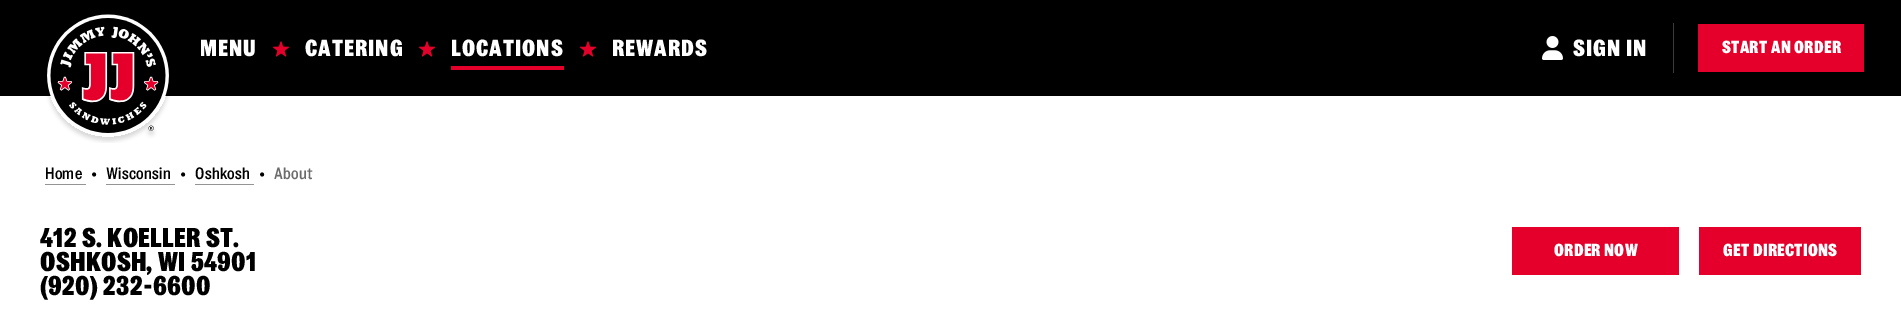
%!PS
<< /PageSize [1901 317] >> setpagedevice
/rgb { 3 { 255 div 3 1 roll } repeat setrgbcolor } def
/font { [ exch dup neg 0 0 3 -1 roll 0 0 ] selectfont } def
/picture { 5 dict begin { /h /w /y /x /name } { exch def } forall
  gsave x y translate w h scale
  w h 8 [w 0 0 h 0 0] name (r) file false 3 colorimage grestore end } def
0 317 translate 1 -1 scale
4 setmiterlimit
255 255 255 rgb
0 0 1901 317 rectfill
0 0 0 rgb
0 0 1901 96 rectfill
(img/1.rgb) 46 14 124 129 picture
(img/2.rgb) 273 41 16 16 picture
(img/2.rgb) 419 41 16 16 picture
228 0 43 rgb
451 66 113 4 rectfill
(img/2.rgb) 580 41 16 16 picture
(img/3.rgb) 1542 36 21 24 picture
[
  [1673 23 1 50 59 59 59]
  [1698 24 166 48 228 0 43]
  [45 184 41 1 148 148 148]
  [106 184 69 1 148 148 148]
  [195 184 59 1 148 148 148]
  [1512 227 167 48 228 0 43]
  [1699 227 162 48 228 0 43]
] { aload pop rgb rectfill } forall
/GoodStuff-Bold 24 font
255 255 255 rgb
200 56 moveto 1 0 (MENU) ashow
305 56 moveto 1 0 (CATERING) ashow
451 56 moveto 1 0 (LOCATIONS) ashow
612 56 moveto 1 0 (REWARDS) ashow
1573 56 moveto 1 0 (SIGN IN) ashow
/GoodStuff-Bold 18 font
1722 53 moveto 0.25 0 (START AN ORDER) ashow
/GoodStuff-Regular 17 font
0 0 0 rgb
45 179 moveto 0.25 0 (Home) ashow
91 179 moveto 0.25 0 (•) ashow
106 179 moveto 0.25 0 (Wisconsin) ashow
180 179 moveto 0.25 0 (•) ashow
195 179 moveto 0.25 0 (Oshkosh) ashow
259 179 moveto 0.25 0 (•) ashow
107 107 107 rgb
274 179 moveto 0.25 0 (About) ashow
/GoodStuff-Bold 28 font
0 0 0 rgb
40 247 moveto 0.25 0 (412 S. KOELLER ST.) ashow
40 271 moveto 0.25 0 (OSHKOSH, WI 54901) ashow
40 295 moveto 0.25 0 (\(920\) 232-6600) ashow
/GoodStuff-Bold 18 font
255 255 255 rgb
1554 256 moveto 0.25 0 (ORDER NOW) ashow
1723 256 moveto 0.25 0 (GET DIRECTIONS) ashow
showpage
